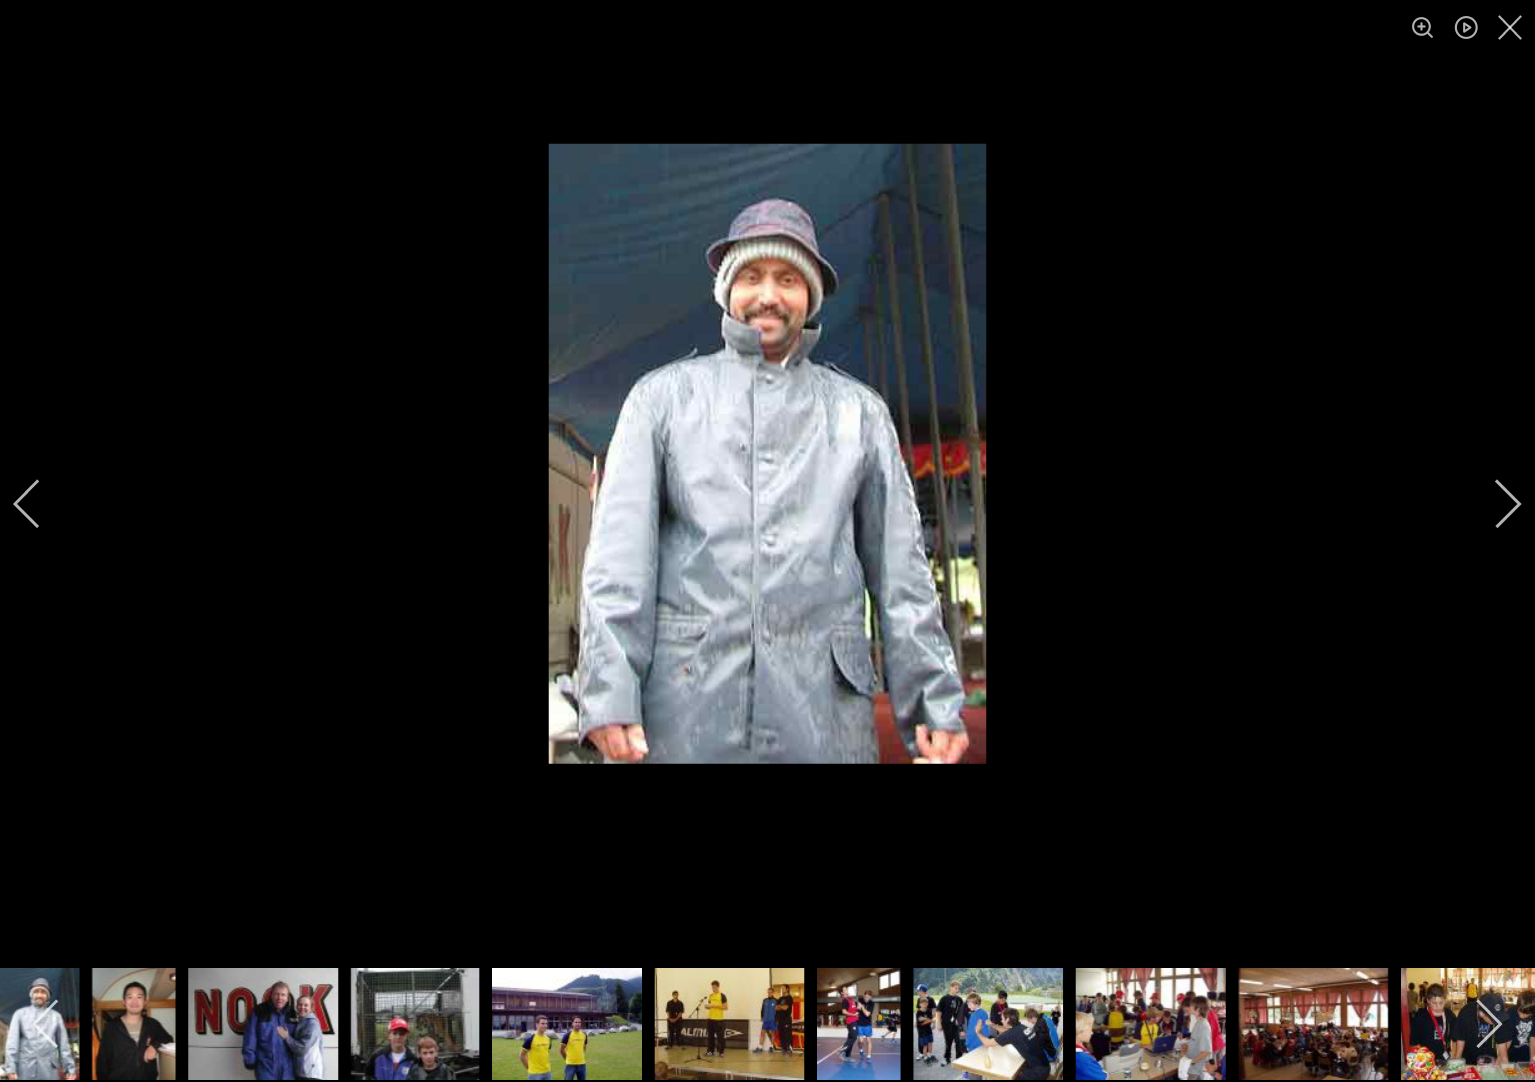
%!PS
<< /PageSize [1535 1082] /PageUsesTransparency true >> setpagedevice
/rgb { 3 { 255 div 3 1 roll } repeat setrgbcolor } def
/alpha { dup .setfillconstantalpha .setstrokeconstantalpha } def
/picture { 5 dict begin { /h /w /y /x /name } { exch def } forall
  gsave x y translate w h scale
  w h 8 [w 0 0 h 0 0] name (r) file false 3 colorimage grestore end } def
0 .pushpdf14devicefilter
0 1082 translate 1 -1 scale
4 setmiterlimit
0 0 0 rgb
0 0 1535 1082 rectfill
(img/1.rgb) 1412 17 21 21 picture
(img/2.rgb) 1454 16 24 23 picture
179 179 179 rgb
1.8 setlinewidth
1499 16 moveto 1521 39 lineto stroke
0.7 alpha
255 255 255 rgb
1521 16 moveto 1499 39 lineto stroke
1 alpha
179 179 179 rgb
2.5 setlinewidth
38 480.5 moveto 15 504 lineto 38 527 lineto stroke
(img/3.rgb) 548 143 439 621 picture
1496.5 527 moveto 1519.5 504 lineto 1496 480.5 lineto stroke
(img/4.rgb) 0 968 80 112 picture
(img/5.rgb) 91 968 86 112 picture
(img/6.rgb) 188 968 151 112 picture
(img/7.rgb) 350 968 130 112 picture
(img/8.rgb) 492 968 150 112 picture
(img/9.rgb) 654 968 151 112 picture
(img/10.rgb) 817 968 84 112 picture
(img/11.rgb) 913 968 151 112 picture
(img/12.rgb) 1075 968 151 112 picture
(img/13.rgb) 1238 968 151 112 picture
(img/14.rgb) 1401 968 134 112 picture
0.7 alpha
255 255 255 rgb
57 1000.5 moveto 34 1024 lineto 57 1047 lineto stroke
1477.5 1047 moveto 1500.5 1024 lineto 1477.5 1000.5 lineto stroke
.poppdf14devicefilter showpage
